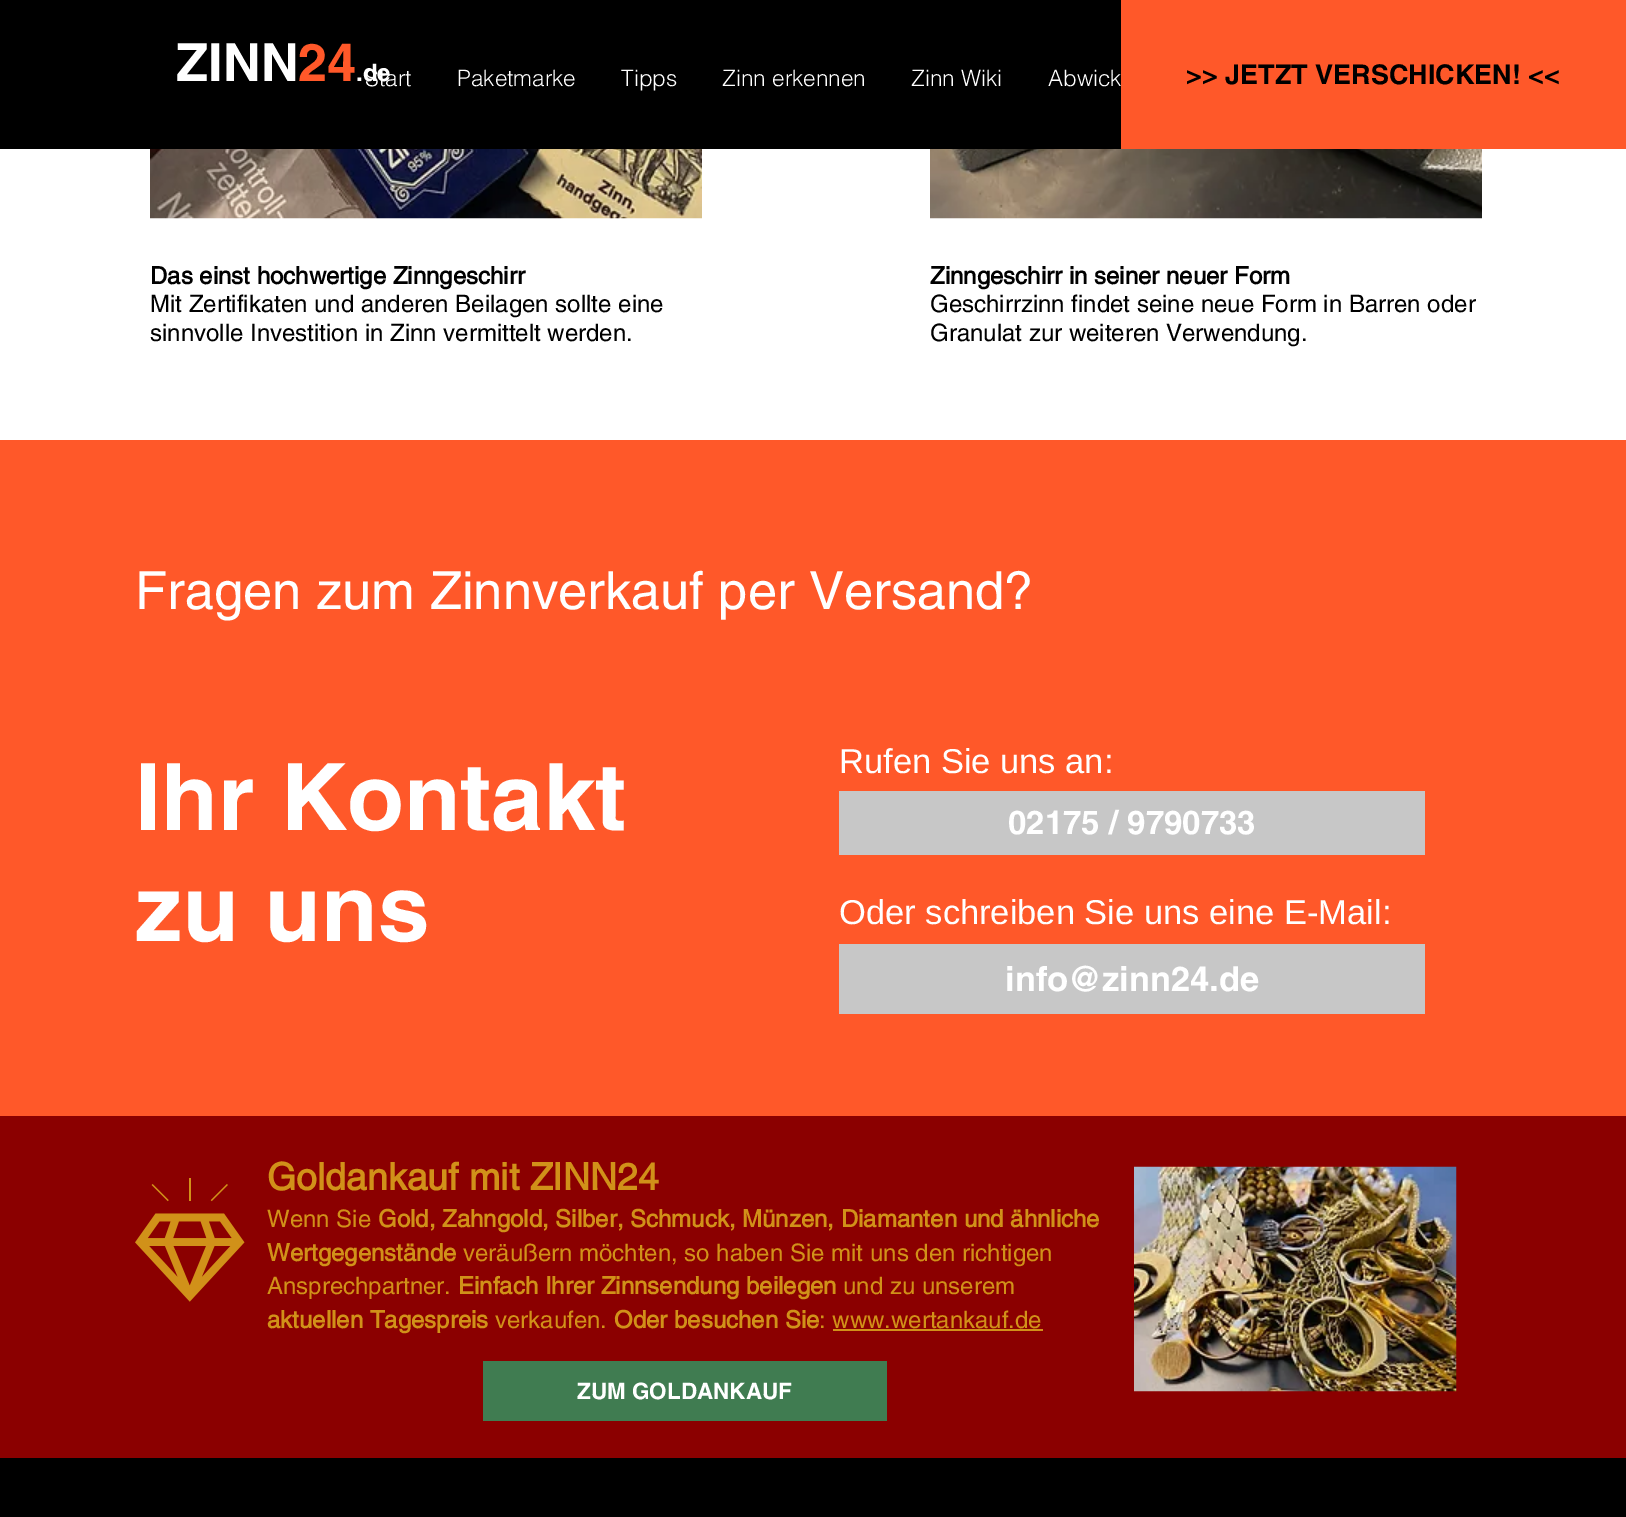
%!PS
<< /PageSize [1626 1517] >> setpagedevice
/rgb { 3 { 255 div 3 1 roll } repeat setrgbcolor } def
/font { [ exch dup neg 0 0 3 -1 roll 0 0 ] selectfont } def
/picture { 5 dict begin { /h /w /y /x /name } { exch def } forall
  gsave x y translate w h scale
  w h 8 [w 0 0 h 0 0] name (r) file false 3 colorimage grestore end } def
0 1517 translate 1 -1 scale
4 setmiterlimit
255 255 255 rgb
0 0 1626 1517 rectfill
0 0 0 rgb
0 0 1121 149 rectfill
(img/1.rgb) 150 149 552 70 picture
(img/2.rgb) 930 149 552 70 picture
[
  [0 440 1626 676 255 88 41]
  [839 791 586 64 199 199 199]
  [839 944 586 70 199 199 199]
  [0 1116 1626 342 139 0 0]
] { aload pop rgb rectfill } forall
(img/3.rgb) 135 1178 110 124 picture
209 145 25 rgb
833 1329 210 2 rectfill
(img/4.rgb) 1134 1166 323 226 picture
64 124 81 rgb
483 1361 404 60 rectfill
0 0 0 rgb
0 1458 1626 59 rectfill
/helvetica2-Bold 52.5 font
255 255 255 rgb
176 81 moveto (ZINN) show
255 88 41 rgb
298 81 moveto (24) show
/helvetica-Light 22.5 font
255 255 255 rgb
365 86 moveto (Start) show
/helvetica2-Bold 24 font
356 81 moveto (.de) show
/helvetica-Light 22.5 font
[
  [(Paketmarke) 457 86]
  [(Tipps) 621 86]
  [(Zinn erkennen) 722 86]
  [(Zinn Wiki) 911 86]
  [(Abwick) 1048 86]
] { aload pop moveto show } forall
255 88 41 rgb
1121 0 505 149 rectfill
/helvetica2-Bold 27 font
0 0 0 rgb
1186 84 moveto (>> JETZT VERSCHICKEN! <<) show
/helvetica-Bold 24 font
150 284 moveto (Das einst hochwertige Zinngeschirr) show
/helvetica-Regular 24 font
150 312 moveto (Mit Zertifikaten und anderen Beilagen sollte eine) show
150 341 moveto (sinnvolle Investition in Zinn vermittelt werden.) show
/helvetica-Bold 24 font
930 284 moveto (Zinngeschirr in seiner neuer Form) show
/helvetica-Regular 24 font
930 312 moveto (Geschirrzinn findet seine neue Form in Barren oder) show
930 341 moveto (Granulat zur weiteren Verwendung.) show
/helvetica-Regular 52.5 font
255 255 255 rgb
135 609 moveto (Fragen zum Zinnverkauf per Versand?) show
/helvetica2-Bold 93 font
135 830 moveto (Ihr Kontakt) show
135 941 moveto (zu uns) show
/LiberationSans-Regular 34.5 font
839 773 moveto (Rufen Sie uns an:) show
/helvetica2-Bold 33 font
1008 834 moveto (02175 / 9790733) show
/LiberationSans-Regular 34.5 font
839 924 moveto (Oder schreiben Sie uns eine E-Mail:) show
/helvetica2-Bold 34.5 font
1005 991 moveto (info@zinn24.de) show
/helvetica-Bold 37.5 font
209 145 25 rgb
267 1190 moveto (Goldankauf mit ZINN24) show
/helvetica-Regular 24 font
267 1227 moveto (Wenn Sie) show
/helvetica-Bold 24 font
378 1227 moveto (Gold, Zahngold, Silber, Schmuck, Münzen, Diamanten und ähnliche) show
267 1261 moveto (Wertgegenstände) show
/helvetica-Regular 24 font
463 1261 moveto (veräußern möchten, so haben Sie mit uns den richtigen) show
267 1294 moveto (Ansprechpartner.) show
/helvetica-Bold 24 font
458 1294 moveto (Einfach Ihrer Zinnsendung beilegen) show
/helvetica-Regular 24 font
843 1294 moveto (und zu unserem) show
/helvetica-Bold 24 font
267 1328 moveto (aktuellen Tagespreis) show
/helvetica-Regular 24 font
495 1328 moveto (verkaufen.) show
/helvetica-Bold 24 font
614 1328 moveto (Oder besuchen Sie) show
/helvetica-Regular 24 font
819 1328 moveto (: www.wertankauf.de) show
/helvetica2-Bold 22.5 font
255 255 255 rgb
577 1399 moveto (ZUM GOLDANKAUF) show
showpage
